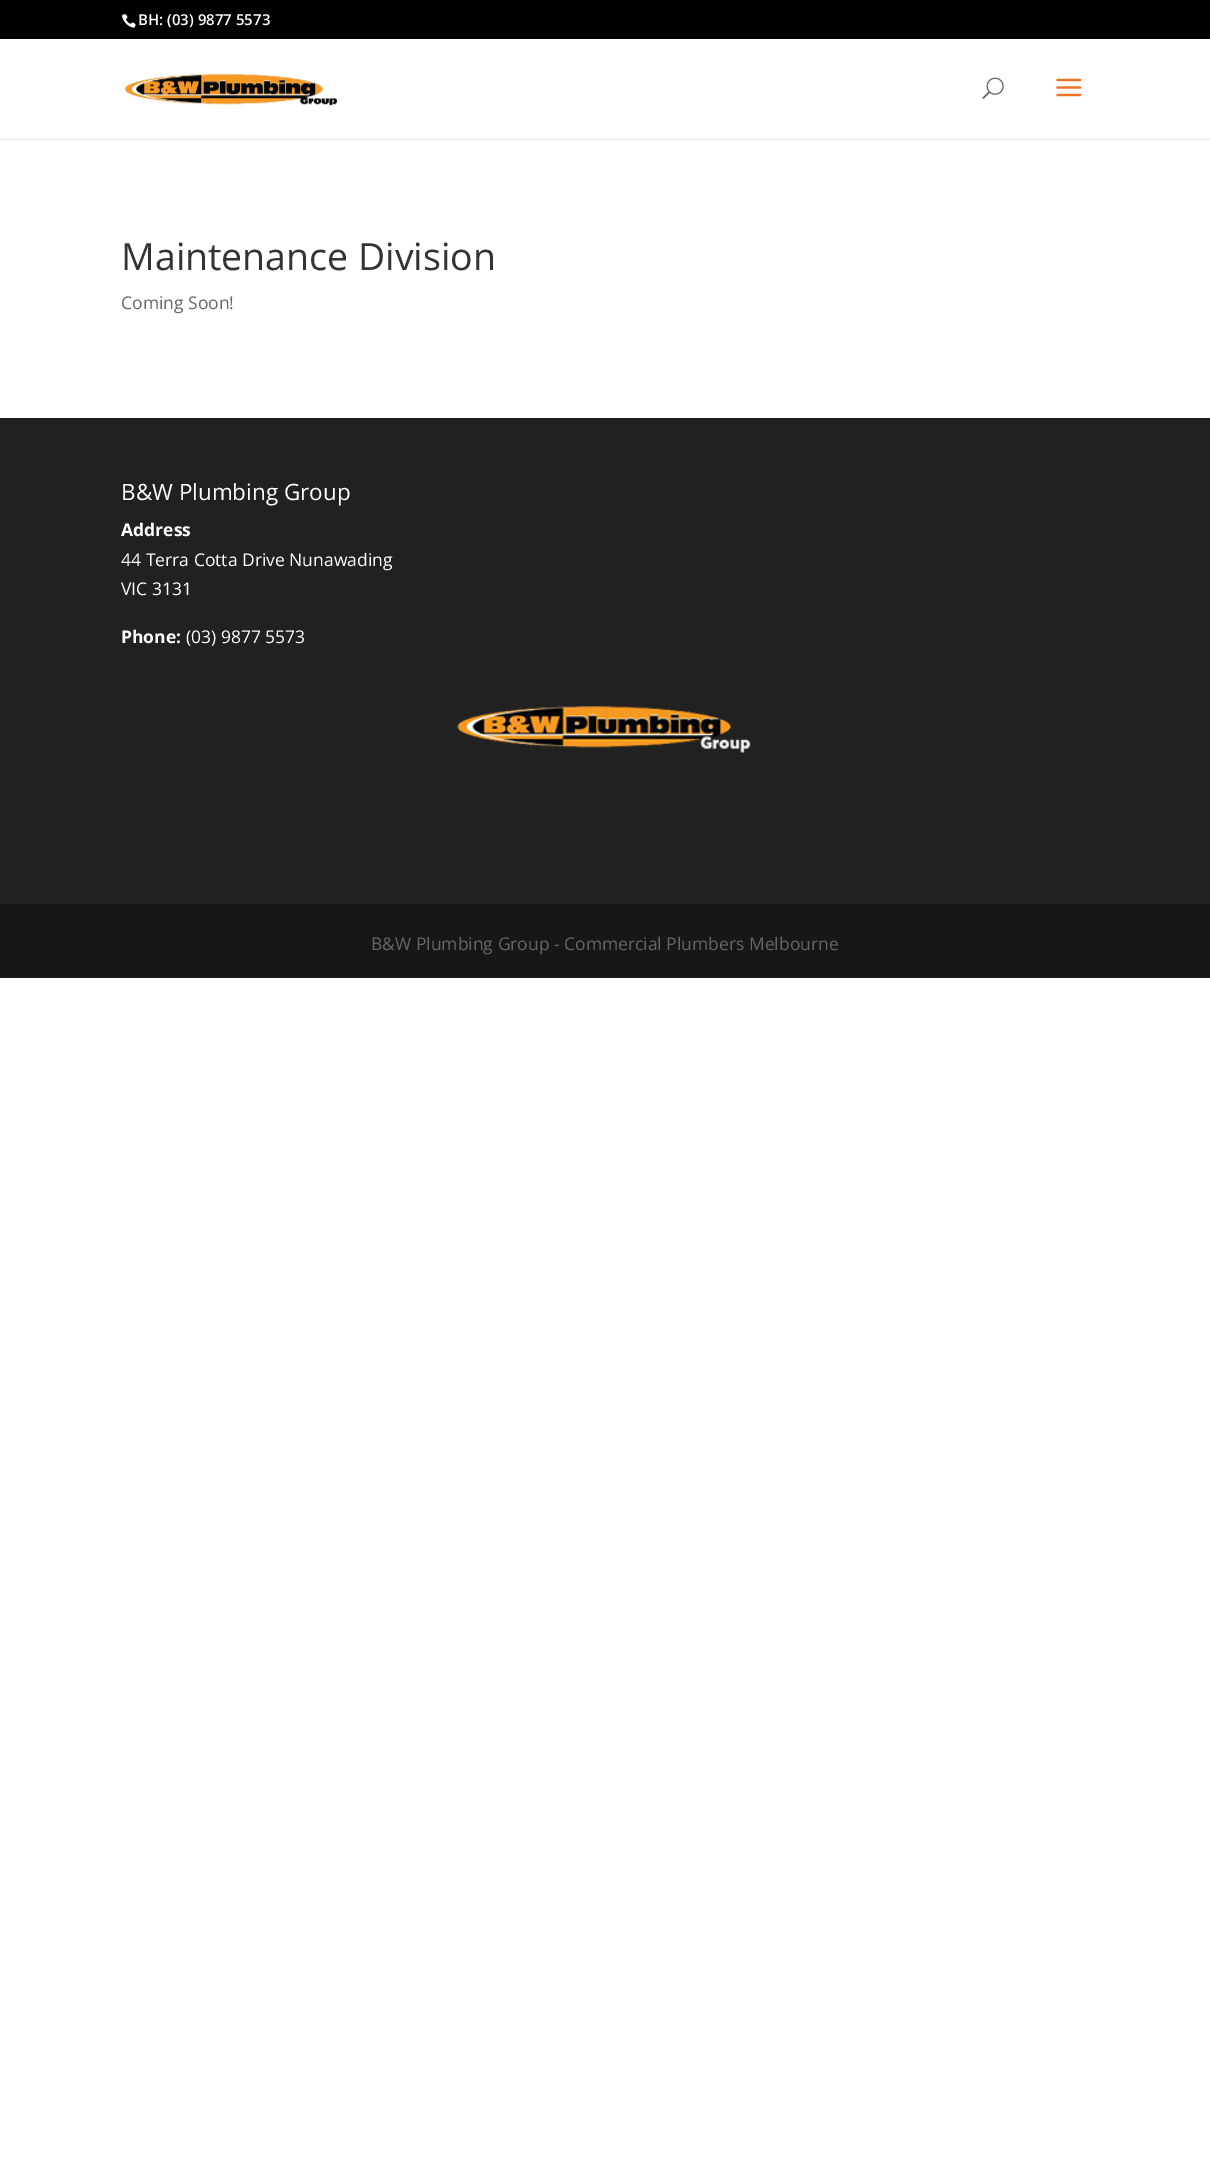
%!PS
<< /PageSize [1210 2157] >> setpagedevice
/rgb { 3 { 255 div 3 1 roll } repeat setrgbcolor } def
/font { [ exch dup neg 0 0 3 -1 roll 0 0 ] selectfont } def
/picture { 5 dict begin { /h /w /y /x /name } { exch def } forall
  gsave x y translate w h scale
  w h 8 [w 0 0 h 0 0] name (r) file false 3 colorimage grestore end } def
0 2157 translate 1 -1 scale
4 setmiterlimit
255 255 255 rgb
0 0 1210 2157 rectfill
0 0 0 rgb
0 0 1210 39 rectfill
(img/1.rgb) 121 14 15 14 picture
230 230 230 rgb
0 139 1210 1 rectfill
(img/2.rgb) 125 74 212 32 picture
(img/3.rgb) 982 77 22 22 picture
(img/4.rgb) 1056 78 26 19 picture
33 33 33 rgb
0 418 1210 486 rectfill
(img/5.rgb) 457 706 294 47 picture
23 23 23 rgb
0 904 1210 74 rectfill
/OpenSans-SemiBold 15 font
255 255 255 rgb
138 25 moveto (BH: \(03\) 9877 5573) show
/OpenSans-Regular 37.5 font
51 51 51 rgb
121 270 moveto (Maintenance Division) show
/OpenSans-Regular 17.5 font
102 102 102 rgb
121 309 moveto (Coming Soon!) show
/OpenSans-Regular 22.5 font
255 255 255 rgb
121 500 moveto (B&W Plumbing Group) show
/OpenSans-Bold 17.5 font
121 536 moveto (Address) show
/OpenSans-Regular 17.5 font
121 566 moveto (44 Terra Cotta Drive Nunawading) show
121 595 moveto (VIC 3131) show
/OpenSans-Bold 17.5 font
121 643 moveto (Phone:) show
/OpenSans-Regular 17.5 font
186 643 moveto (\(03\) 9877 5573) show
102 102 102 rgb
371 950 moveto (B&W Plumbing Group - Commercial Plumbers Melbourne) show
showpage
